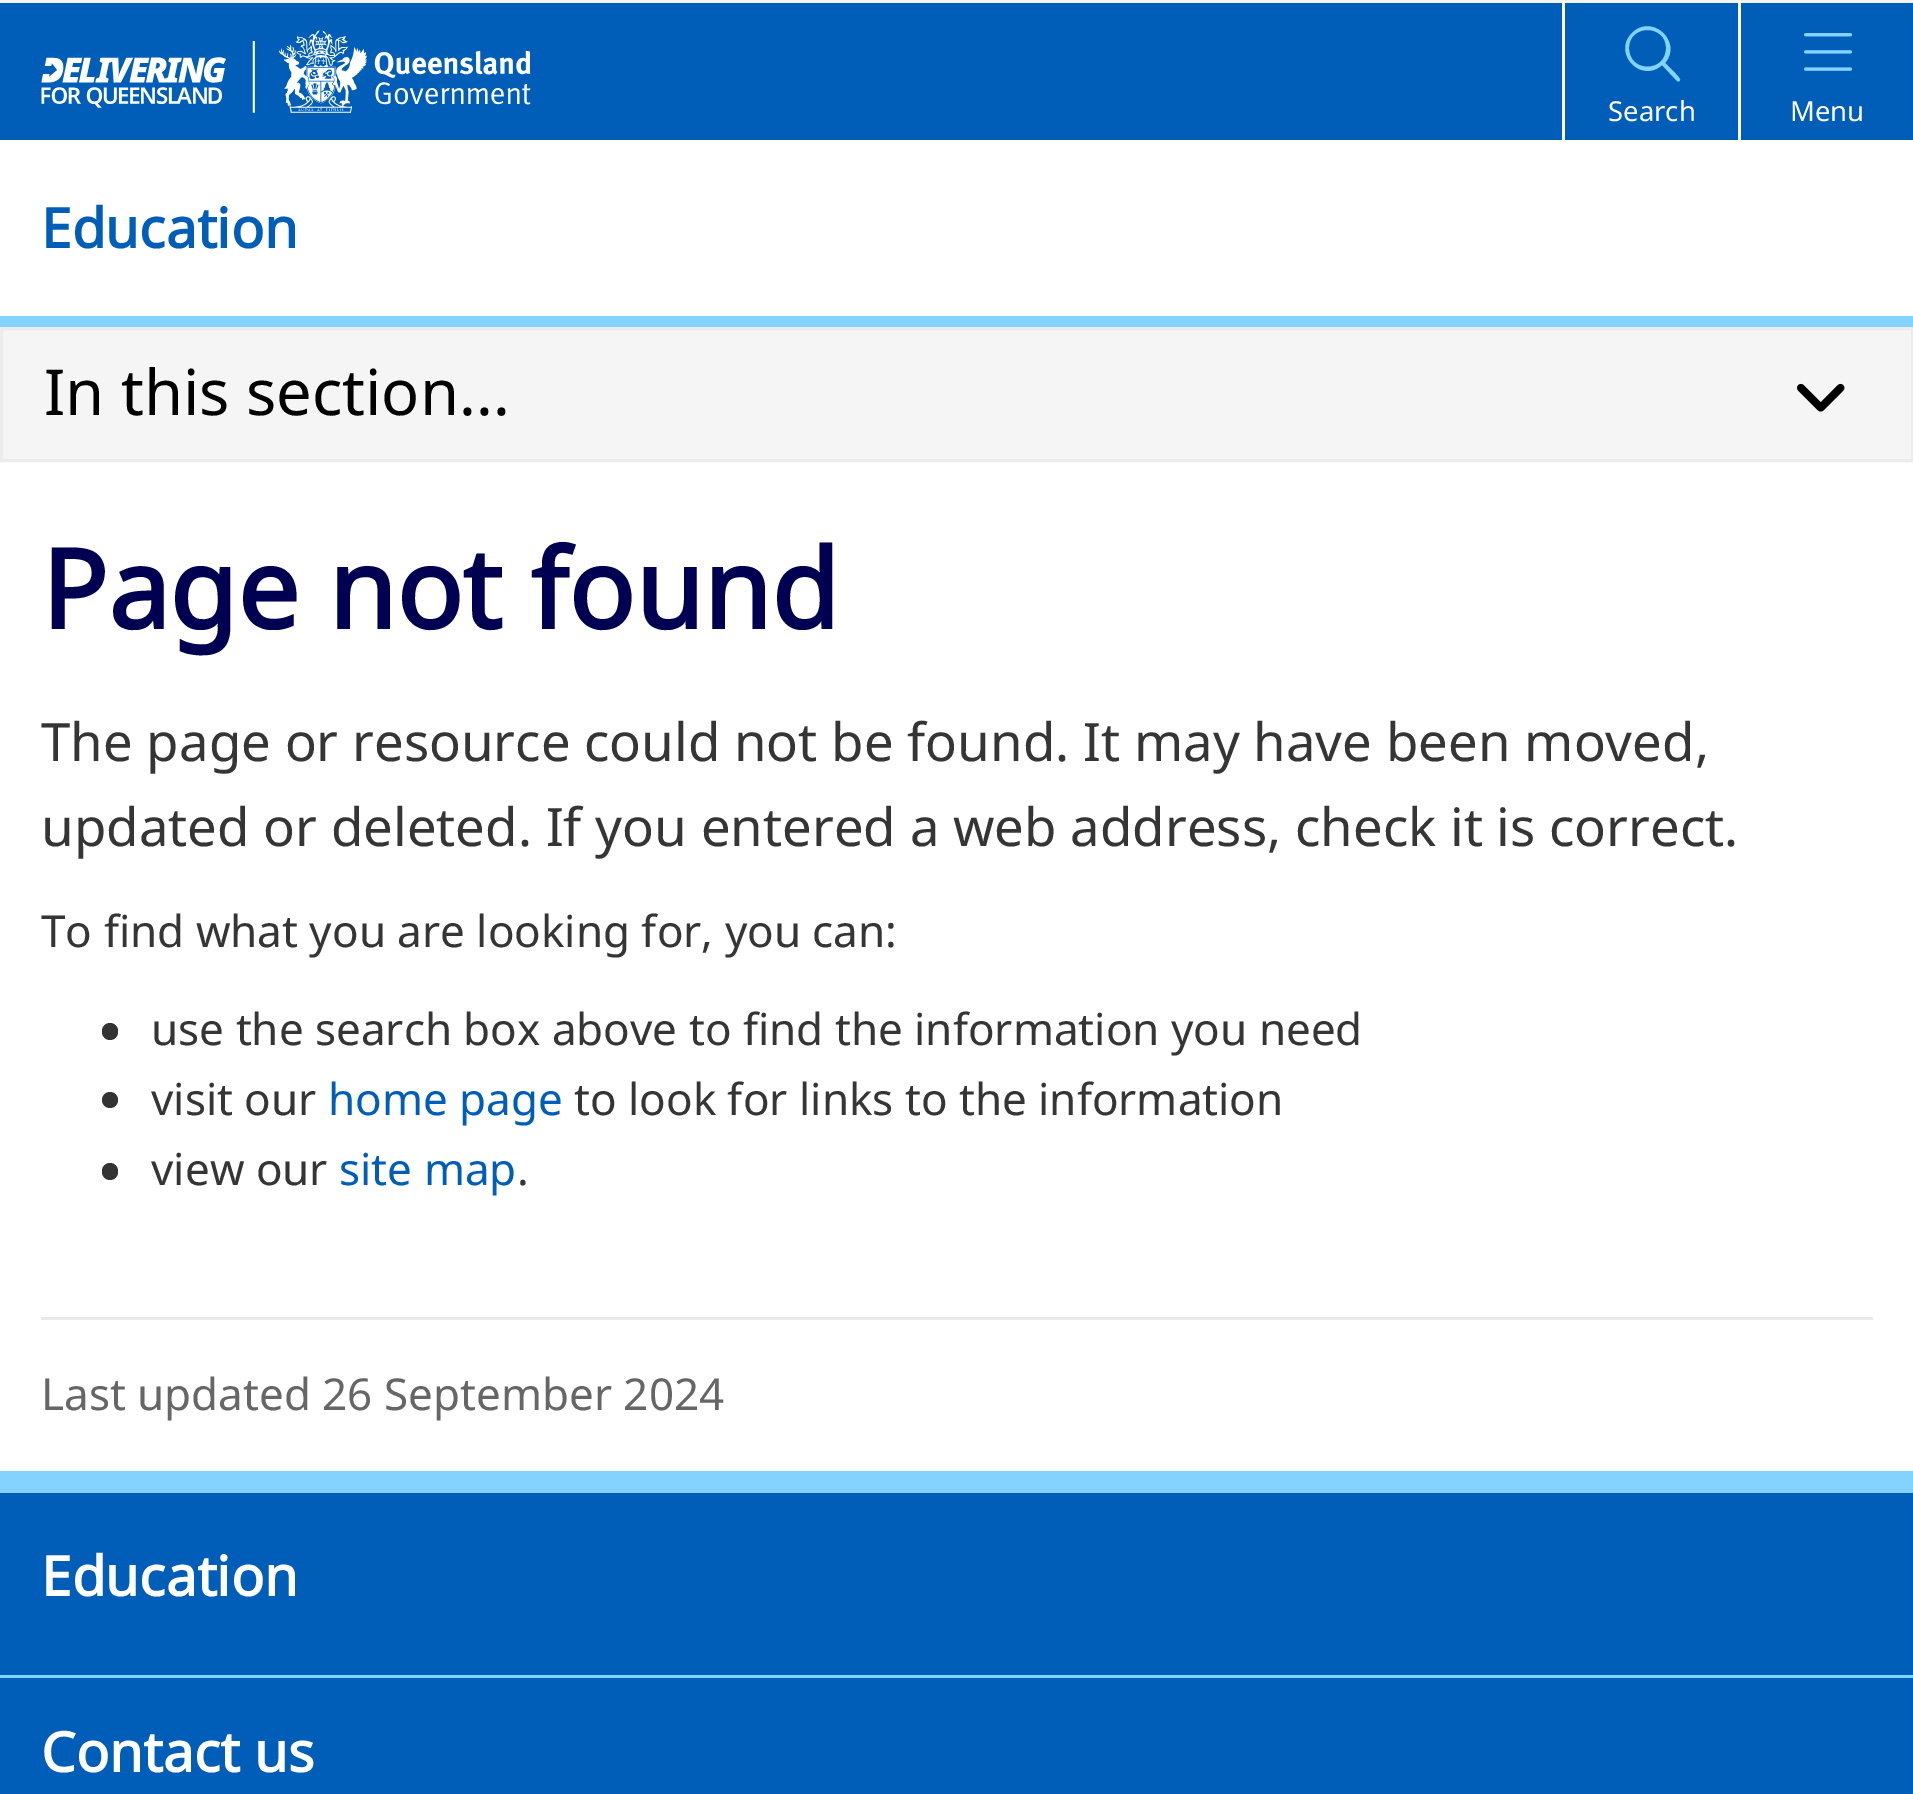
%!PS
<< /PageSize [1913 1794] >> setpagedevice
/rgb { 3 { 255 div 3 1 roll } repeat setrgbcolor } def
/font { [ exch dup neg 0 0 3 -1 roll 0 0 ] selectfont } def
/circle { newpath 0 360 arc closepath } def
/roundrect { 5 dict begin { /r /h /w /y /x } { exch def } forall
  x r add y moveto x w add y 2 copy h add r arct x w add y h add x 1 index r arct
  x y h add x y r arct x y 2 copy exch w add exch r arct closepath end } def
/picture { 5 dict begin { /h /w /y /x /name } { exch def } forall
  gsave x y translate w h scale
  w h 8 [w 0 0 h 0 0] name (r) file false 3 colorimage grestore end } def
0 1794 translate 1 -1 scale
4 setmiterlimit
255 255 255 rgb
0 0 1913 1794 rectfill
243 243 243 rgb
0 0 1913 3 rectfill
0 94 184 rgb
0 3 1913 137 rectfill
(img/1.rgb) 41 30 490 83 picture
255 255 255 rgb
1562 3 3 137 rectfill
132 211 255 rgb
1666 48 moveto 1666 24 1629 24 1629 48 curveto 1629 73 1666 73 1666 48 curveto closepath 1662 65 moveto 1641 84 1612 53 1632 33 curveto 1652 13 1683 42 1665 63 curveto 1667 65 1681 78 1680 80 curveto 1680 81 1678 82 1677 81 curveto closepath fill
255 255 255 rgb
1738 3 3 137 rectfill
(img/2.rgb) 1804 33 49 38 picture
132 211 255 rgb
0 316 1913 11 rectfill
245 245 245 rgb
1.5 328.5 moveto 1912.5 328.5 lineto 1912.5 460.5 lineto 1.5 460.5 lineto closepath gsave fill grestore
236 236 236 rgb
3 setlinewidth
stroke
(img/3.rgb) 1797 383 48 29 picture
51 51 51 rgb
102 1023 16 17 8 roundrect fill
110 1100 8 circle fill
102 1163 16 17 8 roundrect fill
[
  [41 1317 1832 3 234 234 234]
  [0 1493 1913 301 0 94 184]
  [0 1471 1913 22 132 211 255]
  [0 1675 1913 3 132 211 255]
] { aload pop rgb rectfill } forall
/NotoSans-Regular 27.5 font
255 255 255 rgb
1608 121 moveto (Search) show
1790 121 moveto (Menu) show
/NotoSans-Bold 55 font
0 94 184 rgb
41 248 moveto (Education) show
/NotoSans-Regular 63.25 font
0 0 0 rgb
44 415 moveto (In this section...) show
/NotoSans-Bold 110 font
0 0 83 rgb
41 629 moveto (Page not found) show
/NotoSans-Regular 52.8 font
53 53 53 rgb
41 761 moveto (The page or resource could not be found. It may have been moved,) show
41 846 moveto (updated or deleted. If you entered a web address, check it is correct.) show
/NotoSans-Regular 44 font
[
  [(To find what you are looking for, you can:) 41 947]
  [(use the search box above to find the information you need) 151 1045]
  [(visit our) 151 1115]
] { aload pop moveto show } forall
0 94 184 rgb
328 1115 moveto (home page) show
53 53 53 rgb
574 1115 moveto (to look for links to the information) show
151 1185 moveto (view our) show
0 94 184 rgb
339 1185 moveto (site map) show
53 53 53 rgb
517 1185 moveto (.) show
102 102 102 rgb
41 1410 moveto (Last updated 26 September 2024) show
/NotoSans-Bold 55 font
255 255 255 rgb
41 1596 moveto (Education) show
41 1772 moveto (Contact us) show
showpage
